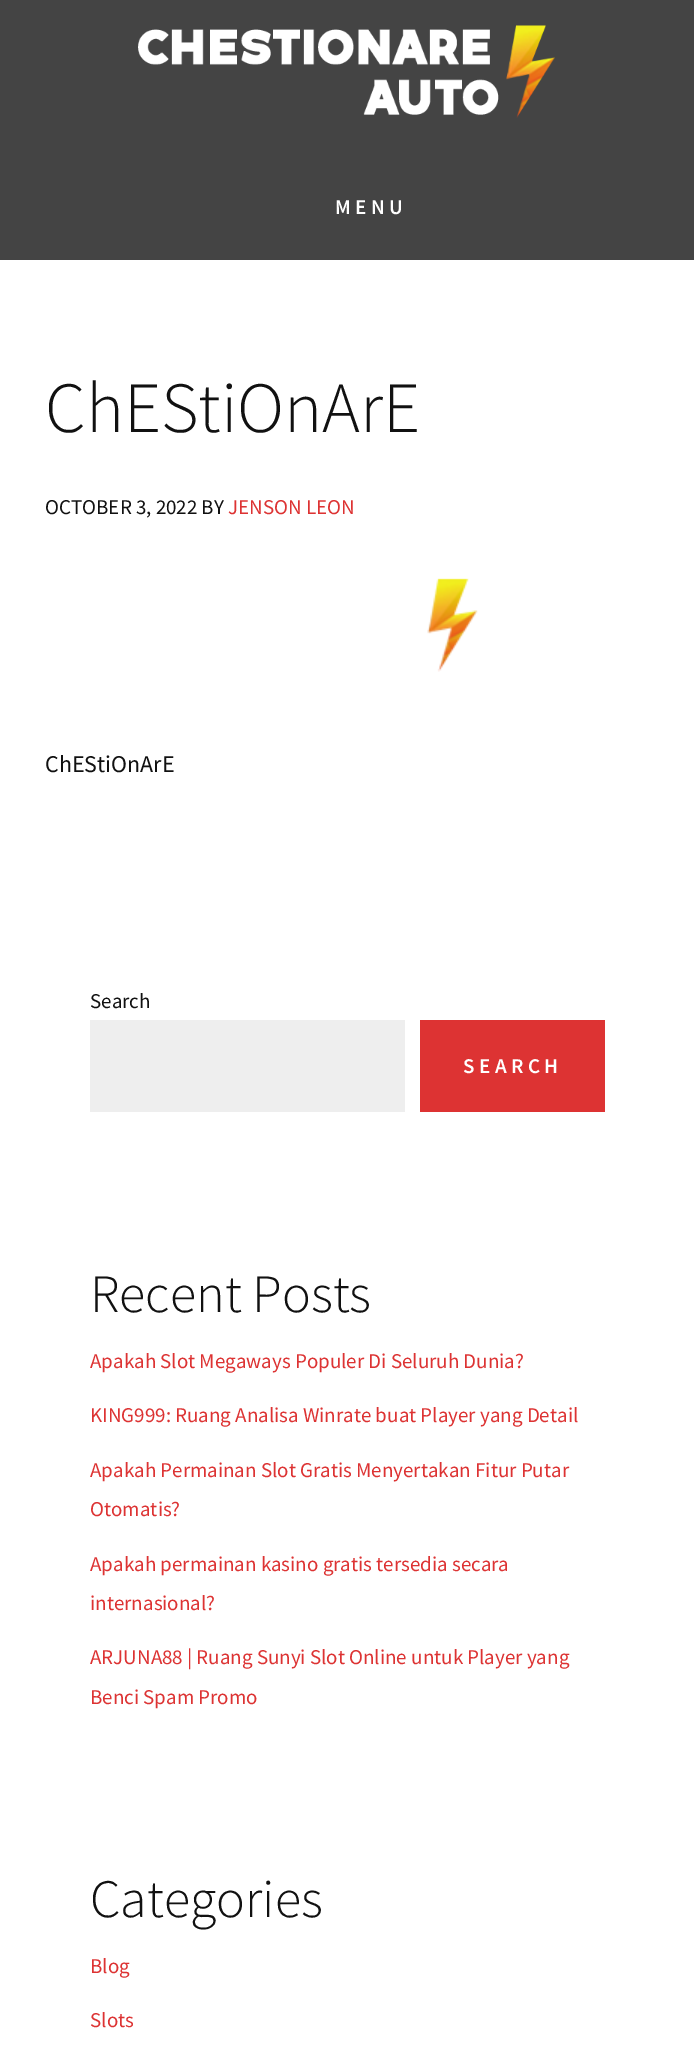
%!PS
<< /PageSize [694 2056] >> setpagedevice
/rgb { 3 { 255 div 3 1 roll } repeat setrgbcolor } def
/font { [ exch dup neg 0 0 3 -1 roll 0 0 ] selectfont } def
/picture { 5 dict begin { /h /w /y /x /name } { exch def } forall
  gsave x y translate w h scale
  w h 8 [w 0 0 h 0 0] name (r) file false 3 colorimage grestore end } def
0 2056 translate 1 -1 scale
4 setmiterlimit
68 68 68 rgb
0 0 694 2056 rectfill
(img/1.rgb) 138 25 417 93 picture
255 255 255 rgb
0 260 694 1796 rectfill
(img/2.rgb) 427 578 51 94 picture
238 238 238 rgb
90 1020 315 92 rectfill
221 51 51 rgb
420 1020 185 92 rectfill
/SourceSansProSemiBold-SemiBold 21 font
255 255 255 rgb
335 214 moveto 4.5 0 (MENU) ashow
/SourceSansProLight-Light 72 font
17 17 17 rgb
45 432 moveto (ChEStiOnArE) show
/SourceSansPro-Regular 21 font
45 514 moveto (OCTOBER 3, 2022 BY) show
221 51 51 rgb
228 514 moveto (JENSON LEON) show
/SourceSansPro-Regular 24 font
17 17 17 rgb
45 772 moveto (ChEStiOnArE) show
/SourceSansPro-Regular 21 font
90 1008 moveto (Search) show
/SourceSansProSemiBold-SemiBold 21 font
255 255 255 rgb
463 1073 moveto 4.5 0 (SEARCH) ashow
/SourceSansProLight-Light 54 font
17 17 17 rgb
90 1312 moveto (Recent Posts) show
/SourceSansPro-Regular 21 font
221 51 51 rgb
[
  [(Apakah Slot Megaways Populer Di Seluruh Dunia?) 90 1368]
  [(KING999: Ruang Analisa Winrate buat Player yang Detail) 90 1422]
  [(Apakah Permainan Slot Gratis Menyertakan Fitur Putar) 90 1477]
  [(Otomatis?) 90 1516]
  [(Apakah permainan kasino gratis tersedia secara) 90 1571]
  [(internasional?) 90 1610]
  [(ARJUNA88 | Ruang Sunyi Slot Online untuk Player yang) 90 1664]
  [(Benci Spam Promo) 90 1704]
] { aload pop moveto show } forall
/SourceSansProLight-Light 54 font
17 17 17 rgb
90 1917 moveto (Categories) show
/SourceSansPro-Regular 21 font
221 51 51 rgb
90 1973 moveto (Blog) show
90 2027 moveto (Slots) show
showpage
